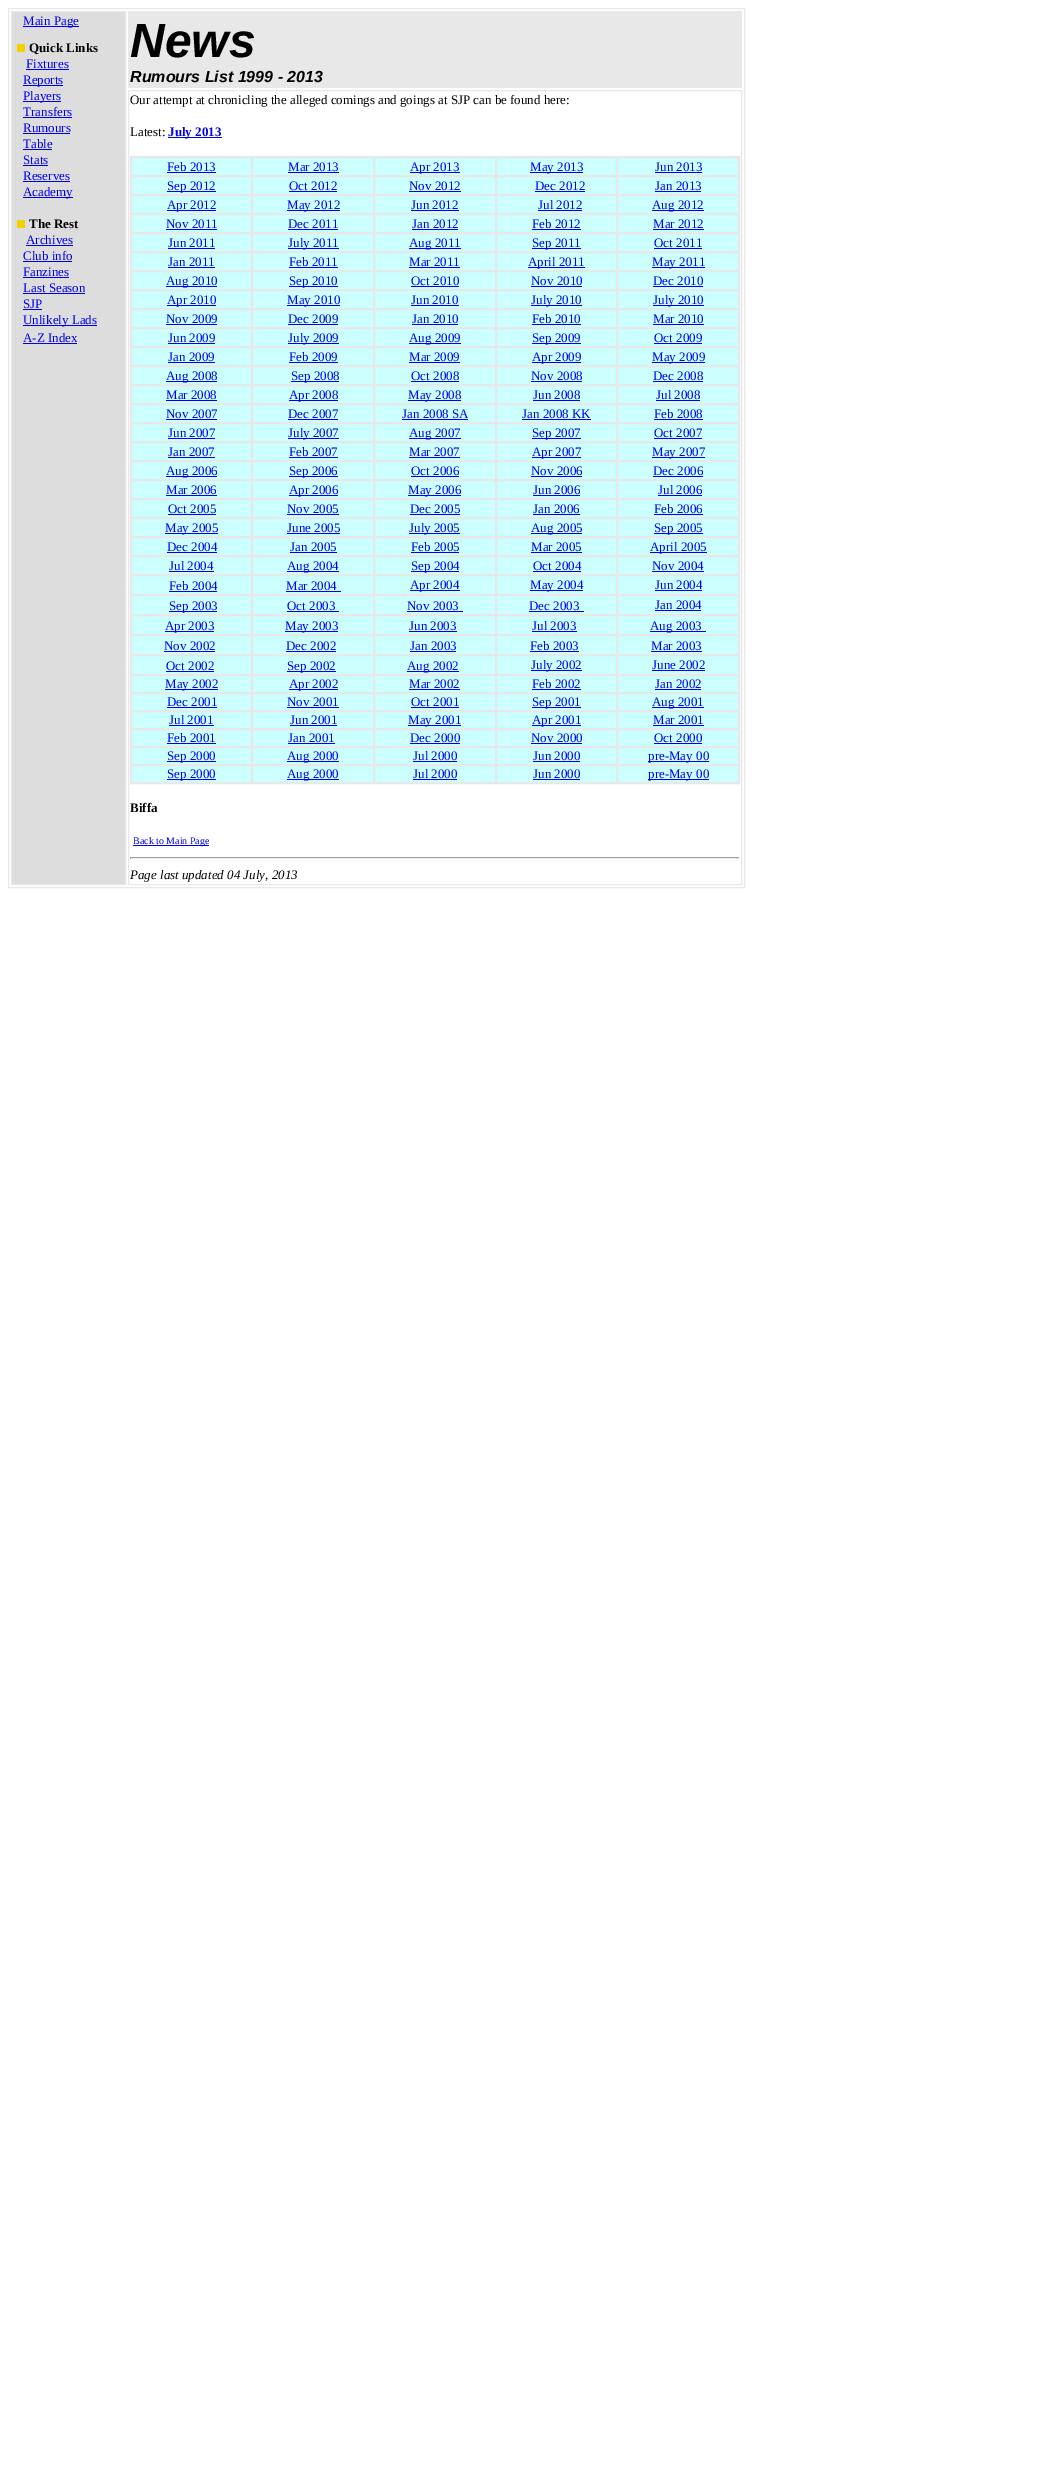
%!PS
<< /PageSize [1059 2488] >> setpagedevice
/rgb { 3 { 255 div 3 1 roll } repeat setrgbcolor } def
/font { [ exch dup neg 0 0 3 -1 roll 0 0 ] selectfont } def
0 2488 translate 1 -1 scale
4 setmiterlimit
255 255 255 rgb
0 0 1059 2488 rectfill
232 232 232 rgb
8.5 8.5 736 879 rectstroke
221 221 221 rgb
11.5 11.5 moveto 125.5 11.5 lineto 125.5 884.5 lineto 11.5 884.5 lineto closepath gsave fill grestore
232 232 232 rgb
stroke
[
  [23 26 56 1 0 0 238]
  [17 44 8 8 243 207 4]
  [26 69 43 1 0 0 238]
  [23 85 40 1 0 0 238]
  [23 101 38 1 0 0 238]
  [23 117 49 1 0 0 238]
  [23 133 47 1 0 0 238]
  [23 149 29 1 0 0 238]
  [23 165 25 1 0 0 238]
  [23 181 47 1 0 0 238]
  [23 197 50 1 0 0 238]
  [17 220 8 8 243 207 4]
  [26 245 47 1 0 0 238]
  [23 261 49 1 0 0 238]
  [23 277 46 1 0 0 238]
  [23 293 62 1 0 0 238]
  [23 309 19 1 0 0 238]
  [23 325 74 1 0 0 238]
  [23 343 54 1 0 0 238]
  [128 11 614 77 232 232 232]
] { aload pop rgb rectfill } forall
128.5 90.5 613 794 rectstroke
0 0 238 rgb
168 137 54 1 rectfill
232 232 232 rgb
130.5 156.5 609 627 rectstroke
204 255 255 rgb
131.5 157.5 moveto 251.5 157.5 lineto 251.5 175.5 lineto 131.5 175.5 lineto closepath gsave fill grestore
232 232 232 rgb
stroke
0 0 238 rgb
167 172 49 1 rectfill
204 255 255 rgb
252.5 157.5 moveto 373.5 157.5 lineto 373.5 175.5 lineto 252.5 175.5 lineto closepath gsave fill grestore
232 232 232 rgb
stroke
0 0 238 rgb
288 172 51 1 rectfill
204 255 255 rgb
374.5 157.5 moveto 495.5 157.5 lineto 495.5 175.5 lineto 374.5 175.5 lineto closepath gsave fill grestore
232 232 232 rgb
stroke
0 0 238 rgb
410 172 50 1 rectfill
204 255 255 rgb
496.5 157.5 moveto 616.5 157.5 lineto 616.5 175.5 lineto 496.5 175.5 lineto closepath gsave fill grestore
232 232 232 rgb
stroke
0 0 238 rgb
530 172 53 1 rectfill
204 255 255 rgb
617.5 157.5 moveto 738.5 157.5 lineto 738.5 175.5 lineto 617.5 175.5 lineto closepath gsave fill grestore
232 232 232 rgb
stroke
0 0 238 rgb
655 172 47 1 rectfill
204 255 255 rgb
131.5 176.5 moveto 251.5 176.5 lineto 251.5 194.5 lineto 131.5 194.5 lineto closepath gsave fill grestore
232 232 232 rgb
stroke
0 0 238 rgb
167 191 49 1 rectfill
204 255 255 rgb
252.5 176.5 moveto 373.5 176.5 lineto 373.5 194.5 lineto 252.5 194.5 lineto closepath gsave fill grestore
232 232 232 rgb
stroke
0 0 238 rgb
289 191 48 1 rectfill
204 255 255 rgb
374.5 176.5 moveto 495.5 176.5 lineto 495.5 194.5 lineto 374.5 194.5 lineto closepath gsave fill grestore
232 232 232 rgb
stroke
0 0 238 rgb
409 191 52 1 rectfill
204 255 255 rgb
496.5 176.5 moveto 616.5 176.5 lineto 616.5 194.5 lineto 496.5 194.5 lineto closepath gsave fill grestore
232 232 232 rgb
stroke
0 0 238 rgb
535 191 50 1 rectfill
204 255 255 rgb
617.5 176.5 moveto 738.5 176.5 lineto 738.5 194.5 lineto 617.5 194.5 lineto closepath gsave fill grestore
232 232 232 rgb
stroke
0 0 238 rgb
655 191 46 1 rectfill
204 255 255 rgb
131.5 195.5 moveto 251.5 195.5 lineto 251.5 213.5 lineto 131.5 213.5 lineto closepath gsave fill grestore
232 232 232 rgb
stroke
0 0 238 rgb
167 210 49 1 rectfill
204 255 255 rgb
252.5 195.5 moveto 373.5 195.5 lineto 373.5 213.5 lineto 252.5 213.5 lineto closepath gsave fill grestore
232 232 232 rgb
stroke
0 0 238 rgb
287 210 53 1 rectfill
204 255 255 rgb
374.5 195.5 moveto 495.5 195.5 lineto 495.5 213.5 lineto 374.5 213.5 lineto closepath gsave fill grestore
232 232 232 rgb
stroke
0 0 238 rgb
411 210 48 1 rectfill
204 255 255 rgb
496.5 195.5 moveto 616.5 195.5 lineto 616.5 213.5 lineto 496.5 213.5 lineto closepath gsave fill grestore
232 232 232 rgb
stroke
0 0 238 rgb
538 210 44 1 rectfill
204 255 255 rgb
617.5 195.5 moveto 738.5 195.5 lineto 738.5 213.5 lineto 617.5 213.5 lineto closepath gsave fill grestore
232 232 232 rgb
stroke
0 0 238 rgb
652 210 52 1 rectfill
204 255 255 rgb
131.5 214.5 moveto 251.5 214.5 lineto 251.5 232.5 lineto 131.5 232.5 lineto closepath gsave fill grestore
232 232 232 rgb
stroke
0 0 238 rgb
166 229 51 1 rectfill
204 255 255 rgb
252.5 214.5 moveto 373.5 214.5 lineto 373.5 232.5 lineto 252.5 232.5 lineto closepath gsave fill grestore
232 232 232 rgb
stroke
0 0 238 rgb
288 229 50 1 rectfill
204 255 255 rgb
374.5 214.5 moveto 495.5 214.5 lineto 495.5 232.5 lineto 374.5 232.5 lineto closepath gsave fill grestore
232 232 232 rgb
stroke
0 0 238 rgb
412 229 46 1 rectfill
204 255 255 rgb
496.5 214.5 moveto 616.5 214.5 lineto 616.5 232.5 lineto 496.5 232.5 lineto closepath gsave fill grestore
232 232 232 rgb
stroke
0 0 238 rgb
532 229 49 1 rectfill
204 255 255 rgb
617.5 214.5 moveto 738.5 214.5 lineto 738.5 232.5 lineto 617.5 232.5 lineto closepath gsave fill grestore
232 232 232 rgb
stroke
0 0 238 rgb
653 229 51 1 rectfill
204 255 255 rgb
131.5 233.5 moveto 251.5 233.5 lineto 251.5 251.5 lineto 131.5 251.5 lineto closepath gsave fill grestore
232 232 232 rgb
stroke
0 0 238 rgb
168 248 47 1 rectfill
204 255 255 rgb
252.5 233.5 moveto 373.5 233.5 lineto 373.5 251.5 lineto 252.5 251.5 lineto closepath gsave fill grestore
232 232 232 rgb
stroke
0 0 238 rgb
288 248 51 1 rectfill
204 255 255 rgb
374.5 233.5 moveto 495.5 233.5 lineto 495.5 251.5 lineto 374.5 251.5 lineto closepath gsave fill grestore
232 232 232 rgb
stroke
0 0 238 rgb
409 248 52 1 rectfill
204 255 255 rgb
496.5 233.5 moveto 616.5 233.5 lineto 616.5 251.5 lineto 496.5 251.5 lineto closepath gsave fill grestore
232 232 232 rgb
stroke
0 0 238 rgb
532 248 49 1 rectfill
204 255 255 rgb
617.5 233.5 moveto 738.5 233.5 lineto 738.5 251.5 lineto 617.5 251.5 lineto closepath gsave fill grestore
232 232 232 rgb
stroke
0 0 238 rgb
654 248 48 1 rectfill
204 255 255 rgb
131.5 252.5 moveto 251.5 252.5 lineto 251.5 270.5 lineto 131.5 270.5 lineto closepath gsave fill grestore
232 232 232 rgb
stroke
0 0 238 rgb
168 267 47 1 rectfill
204 255 255 rgb
252.5 252.5 moveto 373.5 252.5 lineto 373.5 270.5 lineto 252.5 270.5 lineto closepath gsave fill grestore
232 232 232 rgb
stroke
0 0 238 rgb
289 267 49 1 rectfill
204 255 255 rgb
374.5 252.5 moveto 495.5 252.5 lineto 495.5 270.5 lineto 374.5 270.5 lineto closepath gsave fill grestore
232 232 232 rgb
stroke
0 0 238 rgb
409 267 51 1 rectfill
204 255 255 rgb
496.5 252.5 moveto 616.5 252.5 lineto 616.5 270.5 lineto 496.5 270.5 lineto closepath gsave fill grestore
232 232 232 rgb
stroke
0 0 238 rgb
528 267 57 1 rectfill
204 255 255 rgb
617.5 252.5 moveto 738.5 252.5 lineto 738.5 270.5 lineto 617.5 270.5 lineto closepath gsave fill grestore
232 232 232 rgb
stroke
0 0 238 rgb
652 267 53 1 rectfill
204 255 255 rgb
131.5 271.5 moveto 251.5 271.5 lineto 251.5 289.5 lineto 131.5 289.5 lineto closepath gsave fill grestore
232 232 232 rgb
stroke
0 0 238 rgb
166 286 51 1 rectfill
204 255 255 rgb
252.5 271.5 moveto 373.5 271.5 lineto 373.5 289.5 lineto 252.5 289.5 lineto closepath gsave fill grestore
232 232 232 rgb
stroke
0 0 238 rgb
289 286 49 1 rectfill
204 255 255 rgb
374.5 271.5 moveto 495.5 271.5 lineto 495.5 289.5 lineto 374.5 289.5 lineto closepath gsave fill grestore
232 232 232 rgb
stroke
0 0 238 rgb
411 286 48 1 rectfill
204 255 255 rgb
496.5 271.5 moveto 616.5 271.5 lineto 616.5 289.5 lineto 496.5 289.5 lineto closepath gsave fill grestore
232 232 232 rgb
stroke
0 0 238 rgb
531 286 51 1 rectfill
204 255 255 rgb
617.5 271.5 moveto 738.5 271.5 lineto 738.5 289.5 lineto 617.5 289.5 lineto closepath gsave fill grestore
232 232 232 rgb
stroke
0 0 238 rgb
653 286 50 1 rectfill
204 255 255 rgb
131.5 290.5 moveto 251.5 290.5 lineto 251.5 308.5 lineto 131.5 308.5 lineto closepath gsave fill grestore
232 232 232 rgb
stroke
0 0 238 rgb
167 305 49 1 rectfill
204 255 255 rgb
252.5 290.5 moveto 373.5 290.5 lineto 373.5 308.5 lineto 252.5 308.5 lineto closepath gsave fill grestore
232 232 232 rgb
stroke
0 0 238 rgb
287 305 53 1 rectfill
204 255 255 rgb
374.5 290.5 moveto 495.5 290.5 lineto 495.5 308.5 lineto 374.5 308.5 lineto closepath gsave fill grestore
232 232 232 rgb
stroke
0 0 238 rgb
411 305 48 1 rectfill
204 255 255 rgb
496.5 290.5 moveto 616.5 290.5 lineto 616.5 308.5 lineto 496.5 308.5 lineto closepath gsave fill grestore
232 232 232 rgb
stroke
0 0 238 rgb
531 305 51 1 rectfill
204 255 255 rgb
617.5 290.5 moveto 738.5 290.5 lineto 738.5 308.5 lineto 617.5 308.5 lineto closepath gsave fill grestore
232 232 232 rgb
stroke
0 0 238 rgb
653 305 51 1 rectfill
204 255 255 rgb
131.5 309.5 moveto 251.5 309.5 lineto 251.5 327.5 lineto 131.5 327.5 lineto closepath gsave fill grestore
232 232 232 rgb
stroke
0 0 238 rgb
166 324 51 1 rectfill
204 255 255 rgb
252.5 309.5 moveto 373.5 309.5 lineto 373.5 327.5 lineto 252.5 327.5 lineto closepath gsave fill grestore
232 232 232 rgb
stroke
0 0 238 rgb
288 324 50 1 rectfill
204 255 255 rgb
374.5 309.5 moveto 495.5 309.5 lineto 495.5 327.5 lineto 374.5 327.5 lineto closepath gsave fill grestore
232 232 232 rgb
stroke
0 0 238 rgb
412 324 46 1 rectfill
204 255 255 rgb
496.5 309.5 moveto 616.5 309.5 lineto 616.5 327.5 lineto 496.5 327.5 lineto closepath gsave fill grestore
232 232 232 rgb
stroke
0 0 238 rgb
532 324 49 1 rectfill
204 255 255 rgb
617.5 309.5 moveto 738.5 309.5 lineto 738.5 327.5 lineto 617.5 327.5 lineto closepath gsave fill grestore
232 232 232 rgb
stroke
0 0 238 rgb
653 324 51 1 rectfill
204 255 255 rgb
131.5 328.5 moveto 251.5 328.5 lineto 251.5 346.5 lineto 131.5 346.5 lineto closepath gsave fill grestore
232 232 232 rgb
stroke
0 0 238 rgb
168 343 47 1 rectfill
204 255 255 rgb
252.5 328.5 moveto 373.5 328.5 lineto 373.5 346.5 lineto 252.5 346.5 lineto closepath gsave fill grestore
232 232 232 rgb
stroke
0 0 238 rgb
288 343 51 1 rectfill
204 255 255 rgb
374.5 328.5 moveto 495.5 328.5 lineto 495.5 346.5 lineto 374.5 346.5 lineto closepath gsave fill grestore
232 232 232 rgb
stroke
0 0 238 rgb
409 343 52 1 rectfill
204 255 255 rgb
496.5 328.5 moveto 616.5 328.5 lineto 616.5 346.5 lineto 496.5 346.5 lineto closepath gsave fill grestore
232 232 232 rgb
stroke
0 0 238 rgb
532 343 49 1 rectfill
204 255 255 rgb
617.5 328.5 moveto 738.5 328.5 lineto 738.5 346.5 lineto 617.5 346.5 lineto closepath gsave fill grestore
232 232 232 rgb
stroke
0 0 238 rgb
654 343 48 1 rectfill
204 255 255 rgb
131.5 347.5 moveto 251.5 347.5 lineto 251.5 365.5 lineto 131.5 365.5 lineto closepath gsave fill grestore
232 232 232 rgb
stroke
0 0 238 rgb
168 362 47 1 rectfill
204 255 255 rgb
252.5 347.5 moveto 373.5 347.5 lineto 373.5 365.5 lineto 252.5 365.5 lineto closepath gsave fill grestore
232 232 232 rgb
stroke
0 0 238 rgb
289 362 49 1 rectfill
204 255 255 rgb
374.5 347.5 moveto 495.5 347.5 lineto 495.5 365.5 lineto 374.5 365.5 lineto closepath gsave fill grestore
232 232 232 rgb
stroke
0 0 238 rgb
409 362 51 1 rectfill
204 255 255 rgb
496.5 347.5 moveto 616.5 347.5 lineto 616.5 365.5 lineto 496.5 365.5 lineto closepath gsave fill grestore
232 232 232 rgb
stroke
0 0 238 rgb
532 362 49 1 rectfill
204 255 255 rgb
617.5 347.5 moveto 738.5 347.5 lineto 738.5 365.5 lineto 617.5 365.5 lineto closepath gsave fill grestore
232 232 232 rgb
stroke
0 0 238 rgb
652 362 53 1 rectfill
204 255 255 rgb
131.5 366.5 moveto 251.5 366.5 lineto 251.5 384.5 lineto 131.5 384.5 lineto closepath gsave fill grestore
232 232 232 rgb
stroke
0 0 238 rgb
166 381 51 1 rectfill
204 255 255 rgb
252.5 366.5 moveto 373.5 366.5 lineto 373.5 384.5 lineto 252.5 384.5 lineto closepath gsave fill grestore
232 232 232 rgb
stroke
0 0 238 rgb
291 381 48 1 rectfill
204 255 255 rgb
374.5 366.5 moveto 495.5 366.5 lineto 495.5 384.5 lineto 374.5 384.5 lineto closepath gsave fill grestore
232 232 232 rgb
stroke
0 0 238 rgb
411 381 48 1 rectfill
204 255 255 rgb
496.5 366.5 moveto 616.5 366.5 lineto 616.5 384.5 lineto 496.5 384.5 lineto closepath gsave fill grestore
232 232 232 rgb
stroke
0 0 238 rgb
531 381 51 1 rectfill
204 255 255 rgb
617.5 366.5 moveto 738.5 366.5 lineto 738.5 384.5 lineto 617.5 384.5 lineto closepath gsave fill grestore
232 232 232 rgb
stroke
0 0 238 rgb
653 381 50 1 rectfill
204 255 255 rgb
131.5 385.5 moveto 251.5 385.5 lineto 251.5 403.5 lineto 131.5 403.5 lineto closepath gsave fill grestore
232 232 232 rgb
stroke
0 0 238 rgb
166 400 51 1 rectfill
204 255 255 rgb
252.5 385.5 moveto 373.5 385.5 lineto 373.5 403.5 lineto 252.5 403.5 lineto closepath gsave fill grestore
232 232 232 rgb
stroke
0 0 238 rgb
289 400 49 1 rectfill
204 255 255 rgb
374.5 385.5 moveto 495.5 385.5 lineto 495.5 403.5 lineto 374.5 403.5 lineto closepath gsave fill grestore
232 232 232 rgb
stroke
0 0 238 rgb
408 400 53 1 rectfill
204 255 255 rgb
496.5 385.5 moveto 616.5 385.5 lineto 616.5 403.5 lineto 496.5 403.5 lineto closepath gsave fill grestore
232 232 232 rgb
stroke
0 0 238 rgb
533 400 47 1 rectfill
204 255 255 rgb
617.5 385.5 moveto 738.5 385.5 lineto 738.5 403.5 lineto 617.5 403.5 lineto closepath gsave fill grestore
232 232 232 rgb
stroke
0 0 238 rgb
656 400 44 1 rectfill
204 255 255 rgb
131.5 404.5 moveto 251.5 404.5 lineto 251.5 422.5 lineto 131.5 422.5 lineto closepath gsave fill grestore
232 232 232 rgb
stroke
0 0 238 rgb
166 419 51 1 rectfill
204 255 255 rgb
252.5 404.5 moveto 373.5 404.5 lineto 373.5 422.5 lineto 252.5 422.5 lineto closepath gsave fill grestore
232 232 232 rgb
stroke
0 0 238 rgb
288 419 50 1 rectfill
204 255 255 rgb
374.5 404.5 moveto 495.5 404.5 lineto 495.5 422.5 lineto 374.5 422.5 lineto closepath gsave fill grestore
232 232 232 rgb
stroke
0 0 238 rgb
402 419 66 1 rectfill
204 255 255 rgb
496.5 404.5 moveto 616.5 404.5 lineto 616.5 422.5 lineto 496.5 422.5 lineto closepath gsave fill grestore
232 232 232 rgb
stroke
0 0 238 rgb
522 419 69 1 rectfill
204 255 255 rgb
617.5 404.5 moveto 738.5 404.5 lineto 738.5 422.5 lineto 617.5 422.5 lineto closepath gsave fill grestore
232 232 232 rgb
stroke
0 0 238 rgb
654 419 49 1 rectfill
204 255 255 rgb
131.5 423.5 moveto 251.5 423.5 lineto 251.5 441.5 lineto 131.5 441.5 lineto closepath gsave fill grestore
232 232 232 rgb
stroke
0 0 238 rgb
168 438 47 1 rectfill
204 255 255 rgb
252.5 423.5 moveto 373.5 423.5 lineto 373.5 441.5 lineto 252.5 441.5 lineto closepath gsave fill grestore
232 232 232 rgb
stroke
0 0 238 rgb
288 438 51 1 rectfill
204 255 255 rgb
374.5 423.5 moveto 495.5 423.5 lineto 495.5 441.5 lineto 374.5 441.5 lineto closepath gsave fill grestore
232 232 232 rgb
stroke
0 0 238 rgb
409 438 52 1 rectfill
204 255 255 rgb
496.5 423.5 moveto 616.5 423.5 lineto 616.5 441.5 lineto 496.5 441.5 lineto closepath gsave fill grestore
232 232 232 rgb
stroke
0 0 238 rgb
532 438 49 1 rectfill
204 255 255 rgb
617.5 423.5 moveto 738.5 423.5 lineto 738.5 441.5 lineto 617.5 441.5 lineto closepath gsave fill grestore
232 232 232 rgb
stroke
0 0 238 rgb
654 438 48 1 rectfill
204 255 255 rgb
131.5 442.5 moveto 251.5 442.5 lineto 251.5 460.5 lineto 131.5 460.5 lineto closepath gsave fill grestore
232 232 232 rgb
stroke
0 0 238 rgb
168 457 47 1 rectfill
204 255 255 rgb
252.5 442.5 moveto 373.5 442.5 lineto 373.5 460.5 lineto 252.5 460.5 lineto closepath gsave fill grestore
232 232 232 rgb
stroke
0 0 238 rgb
289 457 49 1 rectfill
204 255 255 rgb
374.5 442.5 moveto 495.5 442.5 lineto 495.5 460.5 lineto 374.5 460.5 lineto closepath gsave fill grestore
232 232 232 rgb
stroke
0 0 238 rgb
409 457 51 1 rectfill
204 255 255 rgb
496.5 442.5 moveto 616.5 442.5 lineto 616.5 460.5 lineto 496.5 460.5 lineto closepath gsave fill grestore
232 232 232 rgb
stroke
0 0 238 rgb
532 457 49 1 rectfill
204 255 255 rgb
617.5 442.5 moveto 738.5 442.5 lineto 738.5 460.5 lineto 617.5 460.5 lineto closepath gsave fill grestore
232 232 232 rgb
stroke
0 0 238 rgb
652 457 53 1 rectfill
204 255 255 rgb
131.5 461.5 moveto 251.5 461.5 lineto 251.5 479.5 lineto 131.5 479.5 lineto closepath gsave fill grestore
232 232 232 rgb
stroke
0 0 238 rgb
166 476 51 1 rectfill
204 255 255 rgb
252.5 461.5 moveto 373.5 461.5 lineto 373.5 479.5 lineto 252.5 479.5 lineto closepath gsave fill grestore
232 232 232 rgb
stroke
0 0 238 rgb
289 476 49 1 rectfill
204 255 255 rgb
374.5 461.5 moveto 495.5 461.5 lineto 495.5 479.5 lineto 374.5 479.5 lineto closepath gsave fill grestore
232 232 232 rgb
stroke
0 0 238 rgb
411 476 48 1 rectfill
204 255 255 rgb
496.5 461.5 moveto 616.5 461.5 lineto 616.5 479.5 lineto 496.5 479.5 lineto closepath gsave fill grestore
232 232 232 rgb
stroke
0 0 238 rgb
531 476 51 1 rectfill
204 255 255 rgb
617.5 461.5 moveto 738.5 461.5 lineto 738.5 479.5 lineto 617.5 479.5 lineto closepath gsave fill grestore
232 232 232 rgb
stroke
0 0 238 rgb
653 476 50 1 rectfill
204 255 255 rgb
131.5 480.5 moveto 251.5 480.5 lineto 251.5 498.5 lineto 131.5 498.5 lineto closepath gsave fill grestore
232 232 232 rgb
stroke
0 0 238 rgb
166 495 51 1 rectfill
204 255 255 rgb
252.5 480.5 moveto 373.5 480.5 lineto 373.5 498.5 lineto 252.5 498.5 lineto closepath gsave fill grestore
232 232 232 rgb
stroke
0 0 238 rgb
289 495 49 1 rectfill
204 255 255 rgb
374.5 480.5 moveto 495.5 480.5 lineto 495.5 498.5 lineto 374.5 498.5 lineto closepath gsave fill grestore
232 232 232 rgb
stroke
0 0 238 rgb
408 495 53 1 rectfill
204 255 255 rgb
496.5 480.5 moveto 616.5 480.5 lineto 616.5 498.5 lineto 496.5 498.5 lineto closepath gsave fill grestore
232 232 232 rgb
stroke
0 0 238 rgb
533 495 47 1 rectfill
204 255 255 rgb
617.5 480.5 moveto 738.5 480.5 lineto 738.5 498.5 lineto 617.5 498.5 lineto closepath gsave fill grestore
232 232 232 rgb
stroke
0 0 238 rgb
658 495 44 1 rectfill
204 255 255 rgb
131.5 499.5 moveto 251.5 499.5 lineto 251.5 517.5 lineto 131.5 517.5 lineto closepath gsave fill grestore
232 232 232 rgb
stroke
0 0 238 rgb
168 514 48 1 rectfill
204 255 255 rgb
252.5 499.5 moveto 373.5 499.5 lineto 373.5 517.5 lineto 252.5 517.5 lineto closepath gsave fill grestore
232 232 232 rgb
stroke
0 0 238 rgb
287 514 52 1 rectfill
204 255 255 rgb
374.5 499.5 moveto 495.5 499.5 lineto 495.5 517.5 lineto 374.5 517.5 lineto closepath gsave fill grestore
232 232 232 rgb
stroke
0 0 238 rgb
410 514 50 1 rectfill
204 255 255 rgb
496.5 499.5 moveto 616.5 499.5 lineto 616.5 517.5 lineto 496.5 517.5 lineto closepath gsave fill grestore
232 232 232 rgb
stroke
0 0 238 rgb
533 514 47 1 rectfill
204 255 255 rgb
617.5 499.5 moveto 738.5 499.5 lineto 738.5 517.5 lineto 617.5 517.5 lineto closepath gsave fill grestore
232 232 232 rgb
stroke
0 0 238 rgb
654 514 49 1 rectfill
204 255 255 rgb
131.5 518.5 moveto 251.5 518.5 lineto 251.5 536.5 lineto 131.5 536.5 lineto closepath gsave fill grestore
232 232 232 rgb
stroke
0 0 238 rgb
165 533 53 1 rectfill
204 255 255 rgb
252.5 518.5 moveto 373.5 518.5 lineto 373.5 536.5 lineto 252.5 536.5 lineto closepath gsave fill grestore
232 232 232 rgb
stroke
0 0 238 rgb
287 533 53 1 rectfill
204 255 255 rgb
374.5 518.5 moveto 495.5 518.5 lineto 495.5 536.5 lineto 374.5 536.5 lineto closepath gsave fill grestore
232 232 232 rgb
stroke
0 0 238 rgb
409 533 51 1 rectfill
204 255 255 rgb
496.5 518.5 moveto 616.5 518.5 lineto 616.5 536.5 lineto 496.5 536.5 lineto closepath gsave fill grestore
232 232 232 rgb
stroke
0 0 238 rgb
531 533 51 1 rectfill
204 255 255 rgb
617.5 518.5 moveto 738.5 518.5 lineto 738.5 536.5 lineto 617.5 536.5 lineto closepath gsave fill grestore
232 232 232 rgb
stroke
0 0 238 rgb
654 533 49 1 rectfill
204 255 255 rgb
131.5 537.5 moveto 251.5 537.5 lineto 251.5 555.5 lineto 131.5 555.5 lineto closepath gsave fill grestore
232 232 232 rgb
stroke
0 0 238 rgb
167 552 50 1 rectfill
204 255 255 rgb
252.5 537.5 moveto 373.5 537.5 lineto 373.5 555.5 lineto 252.5 555.5 lineto closepath gsave fill grestore
232 232 232 rgb
stroke
0 0 238 rgb
290 552 47 1 rectfill
204 255 255 rgb
374.5 537.5 moveto 495.5 537.5 lineto 495.5 555.5 lineto 374.5 555.5 lineto closepath gsave fill grestore
232 232 232 rgb
stroke
0 0 238 rgb
411 552 48 1 rectfill
204 255 255 rgb
496.5 537.5 moveto 616.5 537.5 lineto 616.5 555.5 lineto 496.5 555.5 lineto closepath gsave fill grestore
232 232 232 rgb
stroke
0 0 238 rgb
531 552 51 1 rectfill
204 255 255 rgb
617.5 537.5 moveto 738.5 537.5 lineto 738.5 555.5 lineto 617.5 555.5 lineto closepath gsave fill grestore
232 232 232 rgb
stroke
0 0 238 rgb
650 552 57 1 rectfill
204 255 255 rgb
131.5 556.5 moveto 251.5 556.5 lineto 251.5 574.5 lineto 131.5 574.5 lineto closepath gsave fill grestore
232 232 232 rgb
stroke
0 0 238 rgb
169 571 45 1 rectfill
204 255 255 rgb
252.5 556.5 moveto 373.5 556.5 lineto 373.5 574.5 lineto 252.5 574.5 lineto closepath gsave fill grestore
232 232 232 rgb
stroke
0 0 238 rgb
287 571 52 1 rectfill
204 255 255 rgb
374.5 556.5 moveto 495.5 556.5 lineto 495.5 574.5 lineto 374.5 574.5 lineto closepath gsave fill grestore
232 232 232 rgb
stroke
0 0 238 rgb
411 571 48 1 rectfill
204 255 255 rgb
496.5 556.5 moveto 616.5 556.5 lineto 616.5 574.5 lineto 496.5 574.5 lineto closepath gsave fill grestore
232 232 232 rgb
stroke
0 0 238 rgb
533 571 48 1 rectfill
204 255 255 rgb
617.5 556.5 moveto 738.5 556.5 lineto 738.5 574.5 lineto 617.5 574.5 lineto closepath gsave fill grestore
232 232 232 rgb
stroke
0 0 238 rgb
652 571 52 1 rectfill
204 255 255 rgb
131.5 575.5 moveto 251.5 575.5 lineto 251.5 594.5 lineto 131.5 594.5 lineto closepath gsave fill grestore
232 232 232 rgb
stroke
0 0 238 rgb
169 591 48 1 rectfill
204 255 255 rgb
252.5 575.5 moveto 373.5 575.5 lineto 373.5 594.5 lineto 252.5 594.5 lineto closepath gsave fill grestore
232 232 232 rgb
stroke
0 0 238 rgb
286 591 55 1 rectfill
204 255 255 rgb
374.5 575.5 moveto 495.5 575.5 lineto 495.5 594.5 lineto 374.5 594.5 lineto closepath gsave fill grestore
232 232 232 rgb
stroke
0 0 238 rgb
410 590 50 1 rectfill
204 255 255 rgb
496.5 575.5 moveto 616.5 575.5 lineto 616.5 594.5 lineto 496.5 594.5 lineto closepath gsave fill grestore
232 232 232 rgb
stroke
0 0 238 rgb
530 590 53 1 rectfill
204 255 255 rgb
617.5 575.5 moveto 738.5 575.5 lineto 738.5 594.5 lineto 617.5 594.5 lineto closepath gsave fill grestore
232 232 232 rgb
stroke
0 0 238 rgb
655 590 47 1 rectfill
204 255 255 rgb
131.5 595.5 moveto 251.5 595.5 lineto 251.5 614.5 lineto 131.5 614.5 lineto closepath gsave fill grestore
232 232 232 rgb
stroke
0 0 238 rgb
169 611 48 1 rectfill
204 255 255 rgb
252.5 595.5 moveto 373.5 595.5 lineto 373.5 614.5 lineto 252.5 614.5 lineto closepath gsave fill grestore
232 232 232 rgb
stroke
0 0 238 rgb
287 611 52 1 rectfill
204 255 255 rgb
374.5 595.5 moveto 495.5 595.5 lineto 495.5 614.5 lineto 374.5 614.5 lineto closepath gsave fill grestore
232 232 232 rgb
stroke
0 0 238 rgb
407 611 56 1 rectfill
204 255 255 rgb
496.5 595.5 moveto 616.5 595.5 lineto 616.5 614.5 lineto 496.5 614.5 lineto closepath gsave fill grestore
232 232 232 rgb
stroke
0 0 238 rgb
529 611 55 1 rectfill
204 255 255 rgb
617.5 595.5 moveto 738.5 595.5 lineto 738.5 614.5 lineto 617.5 614.5 lineto closepath gsave fill grestore
232 232 232 rgb
stroke
0 0 238 rgb
655 610 46 1 rectfill
204 255 255 rgb
131.5 615.5 moveto 251.5 615.5 lineto 251.5 634.5 lineto 131.5 634.5 lineto closepath gsave fill grestore
232 232 232 rgb
stroke
0 0 238 rgb
165 631 49 1 rectfill
204 255 255 rgb
252.5 615.5 moveto 373.5 615.5 lineto 373.5 634.5 lineto 252.5 634.5 lineto closepath gsave fill grestore
232 232 232 rgb
stroke
0 0 238 rgb
285 631 53 1 rectfill
204 255 255 rgb
374.5 615.5 moveto 495.5 615.5 lineto 495.5 634.5 lineto 374.5 634.5 lineto closepath gsave fill grestore
232 232 232 rgb
stroke
0 0 238 rgb
409 631 48 1 rectfill
204 255 255 rgb
496.5 615.5 moveto 616.5 615.5 lineto 616.5 634.5 lineto 496.5 634.5 lineto closepath gsave fill grestore
232 232 232 rgb
stroke
0 0 238 rgb
532 631 45 1 rectfill
204 255 255 rgb
617.5 615.5 moveto 738.5 615.5 lineto 738.5 634.5 lineto 617.5 634.5 lineto closepath gsave fill grestore
232 232 232 rgb
stroke
0 0 238 rgb
650 631 56 1 rectfill
204 255 255 rgb
131.5 635.5 moveto 251.5 635.5 lineto 251.5 654.5 lineto 131.5 654.5 lineto closepath gsave fill grestore
232 232 232 rgb
stroke
0 0 238 rgb
164 651 51 1 rectfill
204 255 255 rgb
252.5 635.5 moveto 373.5 635.5 lineto 373.5 654.5 lineto 252.5 654.5 lineto closepath gsave fill grestore
232 232 232 rgb
stroke
0 0 238 rgb
286 651 50 1 rectfill
204 255 255 rgb
374.5 635.5 moveto 495.5 635.5 lineto 495.5 654.5 lineto 374.5 654.5 lineto closepath gsave fill grestore
232 232 232 rgb
stroke
0 0 238 rgb
410 651 46 1 rectfill
204 255 255 rgb
496.5 635.5 moveto 616.5 635.5 lineto 616.5 654.5 lineto 496.5 654.5 lineto closepath gsave fill grestore
232 232 232 rgb
stroke
0 0 238 rgb
530 651 49 1 rectfill
204 255 255 rgb
617.5 635.5 moveto 738.5 635.5 lineto 738.5 654.5 lineto 617.5 654.5 lineto closepath gsave fill grestore
232 232 232 rgb
stroke
0 0 238 rgb
651 651 51 1 rectfill
204 255 255 rgb
131.5 655.5 moveto 251.5 655.5 lineto 251.5 674.5 lineto 131.5 674.5 lineto closepath gsave fill grestore
232 232 232 rgb
stroke
0 0 238 rgb
166 671 48 1 rectfill
204 255 255 rgb
252.5 655.5 moveto 373.5 655.5 lineto 373.5 674.5 lineto 252.5 674.5 lineto closepath gsave fill grestore
232 232 232 rgb
stroke
0 0 238 rgb
287 671 49 1 rectfill
204 255 255 rgb
374.5 655.5 moveto 495.5 655.5 lineto 495.5 674.5 lineto 374.5 674.5 lineto closepath gsave fill grestore
232 232 232 rgb
stroke
0 0 238 rgb
407 671 52 1 rectfill
204 255 255 rgb
496.5 655.5 moveto 616.5 655.5 lineto 616.5 674.5 lineto 496.5 674.5 lineto closepath gsave fill grestore
232 232 232 rgb
stroke
0 0 238 rgb
531 670 51 1 rectfill
204 255 255 rgb
617.5 655.5 moveto 738.5 655.5 lineto 738.5 674.5 lineto 617.5 674.5 lineto closepath gsave fill grestore
232 232 232 rgb
stroke
0 0 238 rgb
652 670 53 1 rectfill
204 255 255 rgb
131.5 675.5 moveto 251.5 675.5 lineto 251.5 692.5 lineto 131.5 692.5 lineto closepath gsave fill grestore
232 232 232 rgb
stroke
0 0 238 rgb
165 689 53 1 rectfill
204 255 255 rgb
252.5 675.5 moveto 373.5 675.5 lineto 373.5 692.5 lineto 252.5 692.5 lineto closepath gsave fill grestore
232 232 232 rgb
stroke
0 0 238 rgb
289 689 49 1 rectfill
204 255 255 rgb
374.5 675.5 moveto 495.5 675.5 lineto 495.5 692.5 lineto 374.5 692.5 lineto closepath gsave fill grestore
232 232 232 rgb
stroke
0 0 238 rgb
409 689 51 1 rectfill
204 255 255 rgb
496.5 675.5 moveto 616.5 675.5 lineto 616.5 692.5 lineto 496.5 692.5 lineto closepath gsave fill grestore
232 232 232 rgb
stroke
0 0 238 rgb
532 689 49 1 rectfill
204 255 255 rgb
617.5 675.5 moveto 738.5 675.5 lineto 738.5 692.5 lineto 617.5 692.5 lineto closepath gsave fill grestore
232 232 232 rgb
stroke
0 0 238 rgb
655 689 46 1 rectfill
204 255 255 rgb
131.5 693.5 moveto 251.5 693.5 lineto 251.5 710.5 lineto 131.5 710.5 lineto closepath gsave fill grestore
232 232 232 rgb
stroke
0 0 238 rgb
167 707 50 1 rectfill
204 255 255 rgb
252.5 693.5 moveto 373.5 693.5 lineto 373.5 710.5 lineto 252.5 710.5 lineto closepath gsave fill grestore
232 232 232 rgb
stroke
0 0 238 rgb
287 707 52 1 rectfill
204 255 255 rgb
374.5 693.5 moveto 495.5 693.5 lineto 495.5 710.5 lineto 374.5 710.5 lineto closepath gsave fill grestore
232 232 232 rgb
stroke
0 0 238 rgb
411 707 48 1 rectfill
204 255 255 rgb
496.5 693.5 moveto 616.5 693.5 lineto 616.5 710.5 lineto 496.5 710.5 lineto closepath gsave fill grestore
232 232 232 rgb
stroke
0 0 238 rgb
532 707 49 1 rectfill
204 255 255 rgb
617.5 693.5 moveto 738.5 693.5 lineto 738.5 710.5 lineto 617.5 710.5 lineto closepath gsave fill grestore
232 232 232 rgb
stroke
0 0 238 rgb
652 707 52 1 rectfill
204 255 255 rgb
131.5 711.5 moveto 251.5 711.5 lineto 251.5 728.5 lineto 131.5 728.5 lineto closepath gsave fill grestore
232 232 232 rgb
stroke
0 0 238 rgb
169 725 45 1 rectfill
204 255 255 rgb
252.5 711.5 moveto 373.5 711.5 lineto 373.5 728.5 lineto 252.5 728.5 lineto closepath gsave fill grestore
232 232 232 rgb
stroke
0 0 238 rgb
290 725 47 1 rectfill
204 255 255 rgb
374.5 711.5 moveto 495.5 711.5 lineto 495.5 728.5 lineto 374.5 728.5 lineto closepath gsave fill grestore
232 232 232 rgb
stroke
0 0 238 rgb
408 725 53 1 rectfill
204 255 255 rgb
496.5 711.5 moveto 616.5 711.5 lineto 616.5 728.5 lineto 496.5 728.5 lineto closepath gsave fill grestore
232 232 232 rgb
stroke
0 0 238 rgb
532 725 49 1 rectfill
204 255 255 rgb
617.5 711.5 moveto 738.5 711.5 lineto 738.5 728.5 lineto 617.5 728.5 lineto closepath gsave fill grestore
232 232 232 rgb
stroke
0 0 238 rgb
653 725 51 1 rectfill
204 255 255 rgb
131.5 729.5 moveto 251.5 729.5 lineto 251.5 746.5 lineto 131.5 746.5 lineto closepath gsave fill grestore
232 232 232 rgb
stroke
0 0 238 rgb
167 743 49 1 rectfill
204 255 255 rgb
252.5 729.5 moveto 373.5 729.5 lineto 373.5 746.5 lineto 252.5 746.5 lineto closepath gsave fill grestore
232 232 232 rgb
stroke
0 0 238 rgb
288 743 47 1 rectfill
204 255 255 rgb
374.5 729.5 moveto 495.5 729.5 lineto 495.5 746.5 lineto 374.5 746.5 lineto closepath gsave fill grestore
232 232 232 rgb
stroke
0 0 238 rgb
410 743 50 1 rectfill
204 255 255 rgb
496.5 729.5 moveto 616.5 729.5 lineto 616.5 746.5 lineto 496.5 746.5 lineto closepath gsave fill grestore
232 232 232 rgb
stroke
0 0 238 rgb
531 743 51 1 rectfill
204 255 255 rgb
617.5 729.5 moveto 738.5 729.5 lineto 738.5 746.5 lineto 617.5 746.5 lineto closepath gsave fill grestore
232 232 232 rgb
stroke
0 0 238 rgb
654 743 48 1 rectfill
204 255 255 rgb
131.5 747.5 moveto 251.5 747.5 lineto 251.5 764.5 lineto 131.5 764.5 lineto closepath gsave fill grestore
232 232 232 rgb
stroke
0 0 238 rgb
167 761 49 1 rectfill
204 255 255 rgb
252.5 747.5 moveto 373.5 747.5 lineto 373.5 764.5 lineto 252.5 764.5 lineto closepath gsave fill grestore
232 232 232 rgb
stroke
0 0 238 rgb
287 761 52 1 rectfill
204 255 255 rgb
374.5 747.5 moveto 495.5 747.5 lineto 495.5 764.5 lineto 374.5 764.5 lineto closepath gsave fill grestore
232 232 232 rgb
stroke
0 0 238 rgb
413 761 44 1 rectfill
204 255 255 rgb
496.5 747.5 moveto 616.5 747.5 lineto 616.5 764.5 lineto 496.5 764.5 lineto closepath gsave fill grestore
232 232 232 rgb
stroke
0 0 238 rgb
533 761 47 1 rectfill
204 255 255 rgb
617.5 747.5 moveto 738.5 747.5 lineto 738.5 764.5 lineto 617.5 764.5 lineto closepath gsave fill grestore
232 232 232 rgb
stroke
0 0 238 rgb
648 761 61 1 rectfill
204 255 255 rgb
131.5 765.5 moveto 251.5 765.5 lineto 251.5 782.5 lineto 131.5 782.5 lineto closepath gsave fill grestore
232 232 232 rgb
stroke
0 0 238 rgb
167 779 49 1 rectfill
204 255 255 rgb
252.5 765.5 moveto 373.5 765.5 lineto 373.5 782.5 lineto 252.5 782.5 lineto closepath gsave fill grestore
232 232 232 rgb
stroke
0 0 238 rgb
287 779 52 1 rectfill
204 255 255 rgb
374.5 765.5 moveto 495.5 765.5 lineto 495.5 782.5 lineto 374.5 782.5 lineto closepath gsave fill grestore
232 232 232 rgb
stroke
0 0 238 rgb
413 779 44 1 rectfill
204 255 255 rgb
496.5 765.5 moveto 616.5 765.5 lineto 616.5 782.5 lineto 496.5 782.5 lineto closepath gsave fill grestore
232 232 232 rgb
stroke
0 0 238 rgb
533 779 47 1 rectfill
204 255 255 rgb
617.5 765.5 moveto 738.5 765.5 lineto 738.5 782.5 lineto 617.5 782.5 lineto closepath gsave fill grestore
232 232 232 rgb
stroke
[
  [648 779 61 1 0 0 238]
  [133 845 76 1 0 0 238]
  [130 857 610 1 159 159 159]
  [739 857 1 2 238 238 238]
  [130 858 610 1 238 238 238]
  [130 857 1 2 159 159 159]
] { aload pop rgb rectfill } forall
/LiberationSerif-Regular 13 font
0 0 238 rgb
23 25 moveto (Main Page) show
/LiberationSerif-Bold 13 font
0 0 0 rgb
29 52 moveto (Quick Links) show
/LiberationSerif-Regular 13 font
0 0 238 rgb
[
  [(Fixtures) 26 68]
  [(Reports) 23 84]
  [(Players) 23 100]
  [(Transfers) 23 116]
  [(Rumours) 23 132]
  [(Table) 23 148]
  [(Stats) 23 164]
  [(Reserves) 23 180]
  [(Academy) 23 196]
] { aload pop moveto show } forall
/LiberationSerif-Bold 13 font
0 0 0 rgb
29 228 moveto (The Rest) show
/LiberationSerif-Regular 13 font
0 0 238 rgb
[
  [(Archives) 26 244]
  [(Club info) 23 260]
  [(Fanzines) 23 276]
  [(Last Season) 23 292]
  [(SJP) 23 308]
  [(Unlikely Lads) 23 324]
  [(A-Z Index) 23 342]
] { aload pop moveto show } forall
/LiberationSans-BoldItalic 48 font
0 0 0 rgb
130 57 moveto (News) show
/LiberationSans-BoldItalic 16 font
130 82 moveto (Rumours List 1999 - 2013) show
/LiberationSerif-Regular 13 font
130 104 moveto (Our attempt at chronicling the alleged comings and goings at SJP can be found here:) show
130 136 moveto (Latest:) show
/LiberationSerif-Bold 13 font
0 0 238 rgb
168 136 moveto (July 2013) show
/LiberationSerif-Regular 13 font
[
  [(Feb 2013) 167 171]
  [(Mar 2013) 288 171]
  [(Apr 2013) 410 171]
  [(May 2013) 530 171]
  [(Jun 2013) 655 171]
  [(Sep 2012) 167 190]
  [(Oct 2012) 289 190]
  [(Nov 2012) 409 190]
  [(Dec 2012) 535 190]
  [(Jan 2013) 655 190]
  [(Apr 2012) 167 209]
  [(May 2012) 287 209]
  [(Jun 2012) 411 209]
  [(Jul 2012) 538 209]
  [(Aug 2012) 652 209]
  [(Nov 2011) 166 228]
  [(Dec 2011) 288 228]
  [(Jan 2012) 412 228]
  [(Feb 2012) 532 228]
  [(Mar 2012) 653 228]
  [(Jun 2011) 168 247]
  [(July 2011) 288 247]
  [(Aug 2011) 409 247]
  [(Sep 2011) 532 247]
  [(Oct 2011) 654 247]
  [(Jan 2011) 168 266]
  [(Feb 2011) 289 266]
  [(Mar 2011) 409 266]
  [(April 2011) 528 266]
  [(May 2011) 652 266]
  [(Aug 2010) 166 285]
  [(Sep 2010) 289 285]
  [(Oct 2010) 411 285]
  [(Nov 2010) 531 285]
  [(Dec 2010) 653 285]
  [(Apr 2010) 167 304]
  [(May 2010) 287 304]
  [(Jun 2010) 411 304]
  [(July 2010) 531 304]
  [(July 2010) 653 304]
  [(Nov 2009) 166 323]
  [(Dec 2009) 288 323]
  [(Jan 2010) 412 323]
  [(Feb 2010) 532 323]
  [(Mar 2010) 653 323]
  [(Jun 2009) 168 342]
  [(July 2009) 288 342]
  [(Aug 2009) 409 342]
  [(Sep 2009) 532 342]
  [(Oct 2009) 654 342]
  [(Jan 2009) 168 361]
  [(Feb 2009) 289 361]
  [(Mar 2009) 409 361]
  [(Apr 2009) 532 361]
  [(May 2009) 652 361]
  [(Aug 2008) 166 380]
  [(Sep 2008) 291 380]
  [(Oct 2008) 411 380]
  [(Nov 2008) 531 380]
  [(Dec 2008) 653 380]
  [(Mar 2008) 166 399]
  [(Apr 2008) 289 399]
  [(May 2008) 408 399]
  [(Jun 2008) 533 399]
  [(Jul 2008) 656 399]
  [(Nov 2007) 166 418]
  [(Dec 2007) 288 418]
  [(Jan 2008 SA) 402 418]
  [(Jan 2008 KK) 522 418]
  [(Feb 2008) 654 418]
  [(Jun 2007) 168 437]
  [(July 2007) 288 437]
  [(Aug 2007) 409 437]
  [(Sep 2007) 532 437]
  [(Oct 2007) 654 437]
  [(Jan 2007) 168 456]
  [(Feb 2007) 289 456]
  [(Mar 2007) 409 456]
  [(Apr 2007) 532 456]
  [(May 2007) 652 456]
  [(Aug 2006) 166 475]
  [(Sep 2006) 289 475]
  [(Oct 2006) 411 475]
  [(Nov 2006) 531 475]
  [(Dec 2006) 653 475]
  [(Mar 2006) 166 494]
  [(Apr 2006) 289 494]
  [(May 2006) 408 494]
  [(Jun 2006) 533 494]
  [(Jul 2006) 658 494]
  [(Oct 2005) 168 513]
  [(Nov 2005) 287 513]
  [(Dec 2005) 410 513]
  [(Jan 2006) 533 513]
  [(Feb 2006) 654 513]
  [(May 2005) 165 532]
  [(June 2005) 287 532]
  [(July 2005) 409 532]
  [(Aug 2005) 531 532]
  [(Sep 2005) 654 532]
  [(Dec 2004) 167 551]
  [(Jan 2005) 290 551]
  [(Feb 2005) 411 551]
  [(Mar 2005) 531 551]
  [(April 2005) 650 551]
  [(Jul 2004) 169 570]
  [(Aug 2004) 287 570]
  [(Sep 2004) 411 570]
  [(Oct 2004) 533 570]
  [(Nov 2004) 652 570]
  [(Feb 2004) 169 590]
  [(Mar 2004) 286 590]
  [(Apr 2004) 410 589]
  [(May 2004) 530 589]
  [(Jun 2004) 655 589]
  [(Sep 2003) 169 610]
  [(Oct 2003) 287 610]
  [(Nov 2003) 407 610]
  [(Dec 2003) 529 610]
  [(Jan 2004) 655 609]
  [(Apr 2003) 165 630]
  [(May 2003) 285 630]
  [(Jun 2003) 409 630]
  [(Jul 2003) 532 630]
  [(Aug 2003) 650 630]
  [(Nov 2002) 164 650]
  [(Dec 2002) 286 650]
  [(Jan 2003) 410 650]
  [(Feb 2003) 530 650]
  [(Mar 2003) 651 650]
  [(Oct 2002) 166 670]
  [(Sep 2002) 287 670]
  [(Aug 2002) 407 670]
  [(July 2002) 531 669]
  [(June 2002) 652 669]
  [(May 2002) 165 688]
  [(Apr 2002) 289 688]
  [(Mar 2002) 409 688]
  [(Feb 2002) 532 688]
  [(Jan 2002) 655 688]
  [(Dec 2001) 167 706]
  [(Nov 2001) 287 706]
  [(Oct 2001) 411 706]
  [(Sep 2001) 532 706]
  [(Aug 2001) 652 706]
  [(Jul 2001) 169 724]
  [(Jun 2001) 290 724]
  [(May 2001) 408 724]
  [(Apr 2001) 532 724]
  [(Mar 2001) 653 724]
  [(Feb 2001) 167 742]
  [(Jan 2001) 288 742]
  [(Dec 2000) 410 742]
  [(Nov 2000) 531 742]
  [(Oct 2000) 654 742]
  [(Sep 2000) 167 760]
  [(Aug 2000) 287 760]
  [(Jul 2000) 413 760]
  [(Jun 2000) 533 760]
  [(pre-May 00) 648 760]
  [(Sep 2000) 167 778]
  [(Aug 2000) 287 778]
  [(Jul 2000) 413 778]
  [(Jun 2000) 533 778]
  [(pre-May 00) 648 778]
] { aload pop moveto show } forall
/LiberationSerif-Bold 13 font
0 0 0 rgb
130 812 moveto (Biffa) show
/LiberationSerif-Regular 10 font
0 0 238 rgb
133 844 moveto (Back to Main Page) show
/LiberationSerif-Italic 13 font
0 0 0 rgb
130 879 moveto (Page last updated 04 July, 2013) show
showpage
